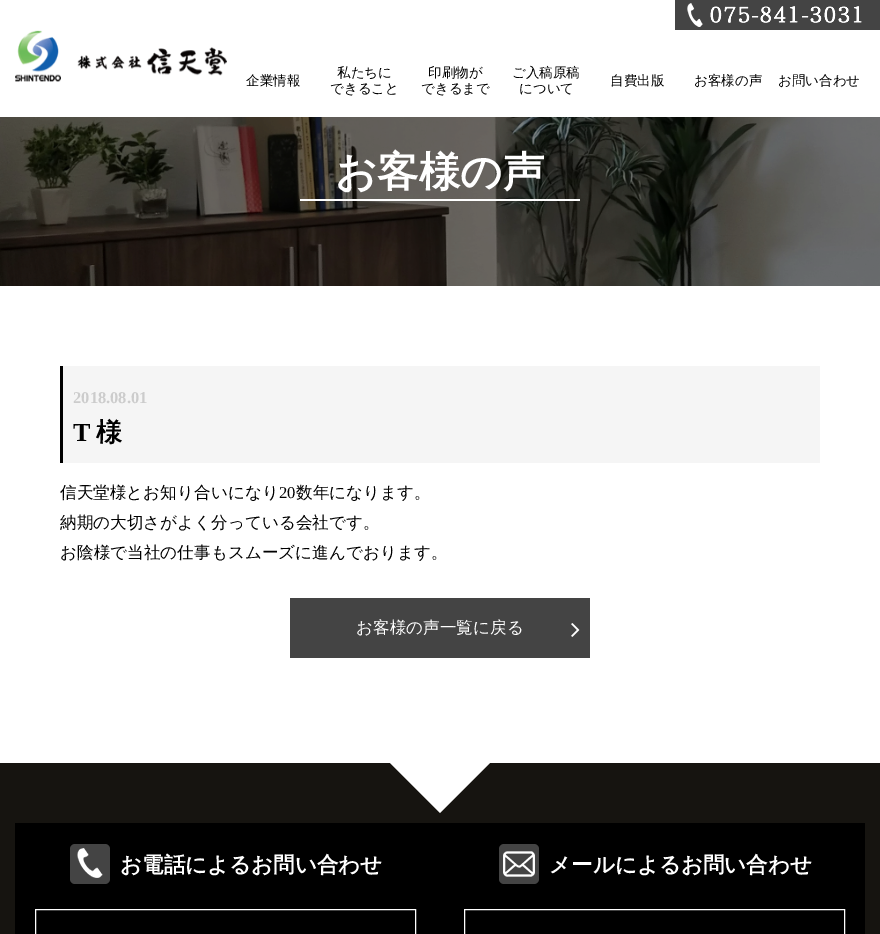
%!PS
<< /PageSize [880 934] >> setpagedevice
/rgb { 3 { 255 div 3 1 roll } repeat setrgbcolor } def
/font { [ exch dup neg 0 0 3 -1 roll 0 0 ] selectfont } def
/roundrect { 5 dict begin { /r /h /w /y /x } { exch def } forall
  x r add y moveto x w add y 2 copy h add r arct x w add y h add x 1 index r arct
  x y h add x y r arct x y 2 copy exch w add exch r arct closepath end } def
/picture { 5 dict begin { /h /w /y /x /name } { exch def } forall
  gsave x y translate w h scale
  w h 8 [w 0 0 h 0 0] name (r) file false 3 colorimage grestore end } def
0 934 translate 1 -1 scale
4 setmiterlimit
255 255 255 rgb
0 0 880 934 rectfill
(img/1.rgb) 675 0 205 30 picture
(img/2.rgb) 15 30 212 52 picture
(img/3.rgb) 0 117 880 169 picture
[
  [300 199 280 2 255 255 255]
  [63 366 757 97 245 245 245]
  [60 366 3 97 0 0 0]
  [290 598 300 60 68 68 68]
] { aload pop rgb rectfill } forall
(img/4.rgb) 571 623 9 14 picture
22 20 16 rgb
0 763 880 171 rectfill
255 255 255 rgb
390 763 moveto 490 763 lineto 440 813 lineto closepath fill
0 0 0 rgb
15 823 850 111 rectfill
68 68 68 rgb
70 844 40 40 5 roundrect fill
(img/5.rgb) 77 848 26 30 picture
255 255 255 rgb
35.5 909.5 380 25 rectstroke
68 68 68 rgb
499 844 40 40 5 roundrect fill
(img/6.rgb) 503 851 32 26 picture
255 255 255 rgb
464.5 909.5 380 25 rectstroke
/WenQuanYiZenHei-Medium 13.5 font
0 0 0 rgb
[
  [(企業情報) 246 85]
  [(私たちに) 337 77]
  [(できること) 330 93]
  [(印刷物が) 428 77]
  [(できるまで) 421 93]
  [(ご入稿原稿) 512 77]
  [(について) 519 93]
  [(自費出版) 610 85]
  [(お客様の声) 694 85]
  [(お問い合わせ) 778 85]
] { aload pop moveto show } forall
/WenQuanYiZenHei-Bold 41.5 font
255 255 255 rgb
335 186 moveto (お客様の声) show
/LiberationSerif-Bold 16.5 font
204 204 204 rgb
73 403 moveto (2018.08.01) show
/LiberationSerif-Bold 26 font
0 0 0 rgb
73 441 moveto (T) show
/WenQuanYiZenHei-Bold 26 font
96 441 moveto (様) show
/WenQuanYiZenHei-Medium 16.6 font
60 498 moveto (信天堂様とお知り合いになり) show
/LiberationSerif-Regular 16.6 font
279 498 moveto (20) show
/WenQuanYiZenHei-Medium 16.6 font
[
  [(数年になります。) 296 498]
  [(納期の大切さがよく分っている会社です。) 60 528]
  [(お陰様で当社の仕事もスムーズに進んでおります。) 60 558]
] { aload pop moveto show } forall
255 255 255 rgb
356 633 moveto (お客様の声一覧に戻る) show
/WenQuanYiZenHei-Bold 21.5 font
120 872 moveto (お電話によるお問い合わせ) show
549 872 moveto (メールによるお問い合わせ) show
showpage
